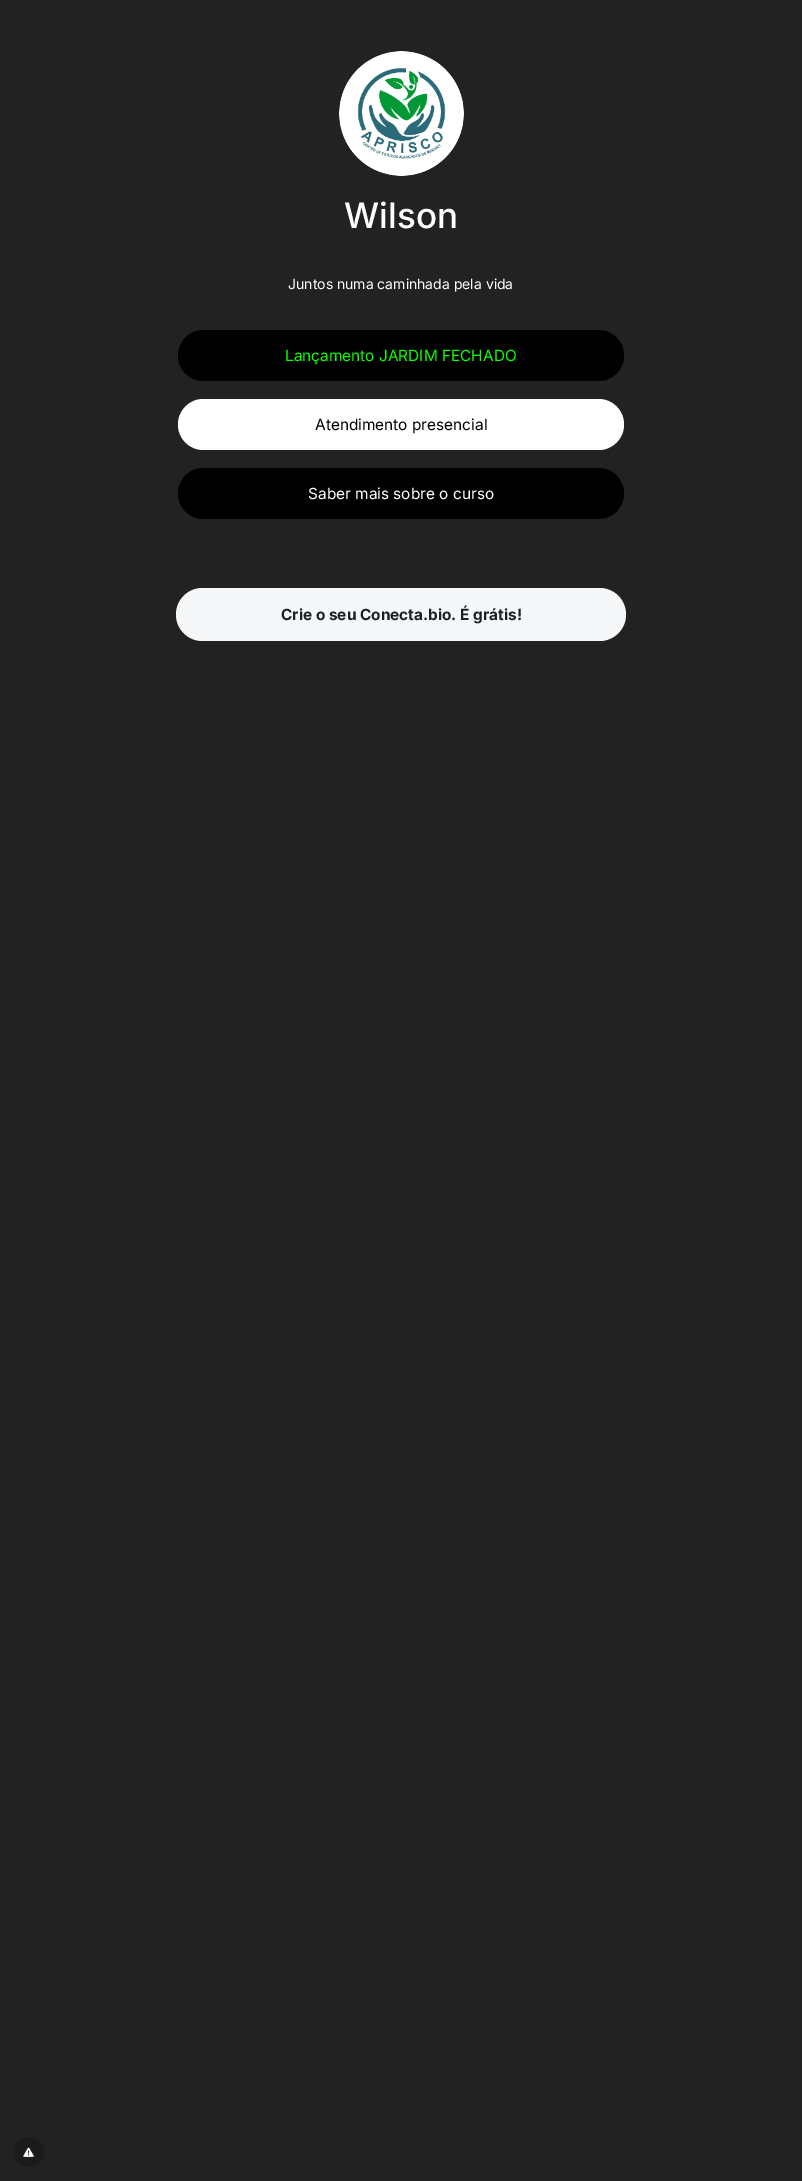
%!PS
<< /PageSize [802 2181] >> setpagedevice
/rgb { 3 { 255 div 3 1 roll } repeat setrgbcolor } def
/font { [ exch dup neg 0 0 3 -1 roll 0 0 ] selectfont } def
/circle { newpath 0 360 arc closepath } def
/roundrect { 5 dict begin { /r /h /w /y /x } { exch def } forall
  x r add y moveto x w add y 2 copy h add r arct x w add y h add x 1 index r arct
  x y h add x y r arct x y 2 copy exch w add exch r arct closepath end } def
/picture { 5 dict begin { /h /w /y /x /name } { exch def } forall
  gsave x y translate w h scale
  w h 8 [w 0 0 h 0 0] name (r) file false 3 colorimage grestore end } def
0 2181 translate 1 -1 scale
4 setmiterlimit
34 34 34 rgb
0 0 802 2181 rectfill
(img/1.rgb) 339 51 125 125 picture
0 0 0 rgb
178 330 446 51 25.5 roundrect fill
255 255 255 rgb
178 399 446 51 25.5 roundrect fill
0 0 0 rgb
178 468 446 51 25.5 roundrect fill
246 247 248 rgb
176 588 450 53 26.5 roundrect fill
27 27 27 rgb
29 2152 15 circle fill
(img/2.rgb) 23 2147 11 10 picture
/Inter-Medium 35 font
255 255 255 rgb
344 228 moveto (Wilson) show
/Inter-Regular 14 font
288 289 moveto (Juntos numa caminhada pela vida) show
/Inter-Regular 15.4 font
11 255 0 rgb
285 361 moveto (Lançamento JARDIM FECHADO) show
0 0 0 rgb
315 430 moveto (Atendimento presencial) show
255 255 255 rgb
308 499 moveto (Saber mais sobre o curso) show
/Inter-Bold 15.4 font
29 31 37 rgb
281 620 moveto (Crie o seu Conecta.bio. É grátis!) show
showpage
